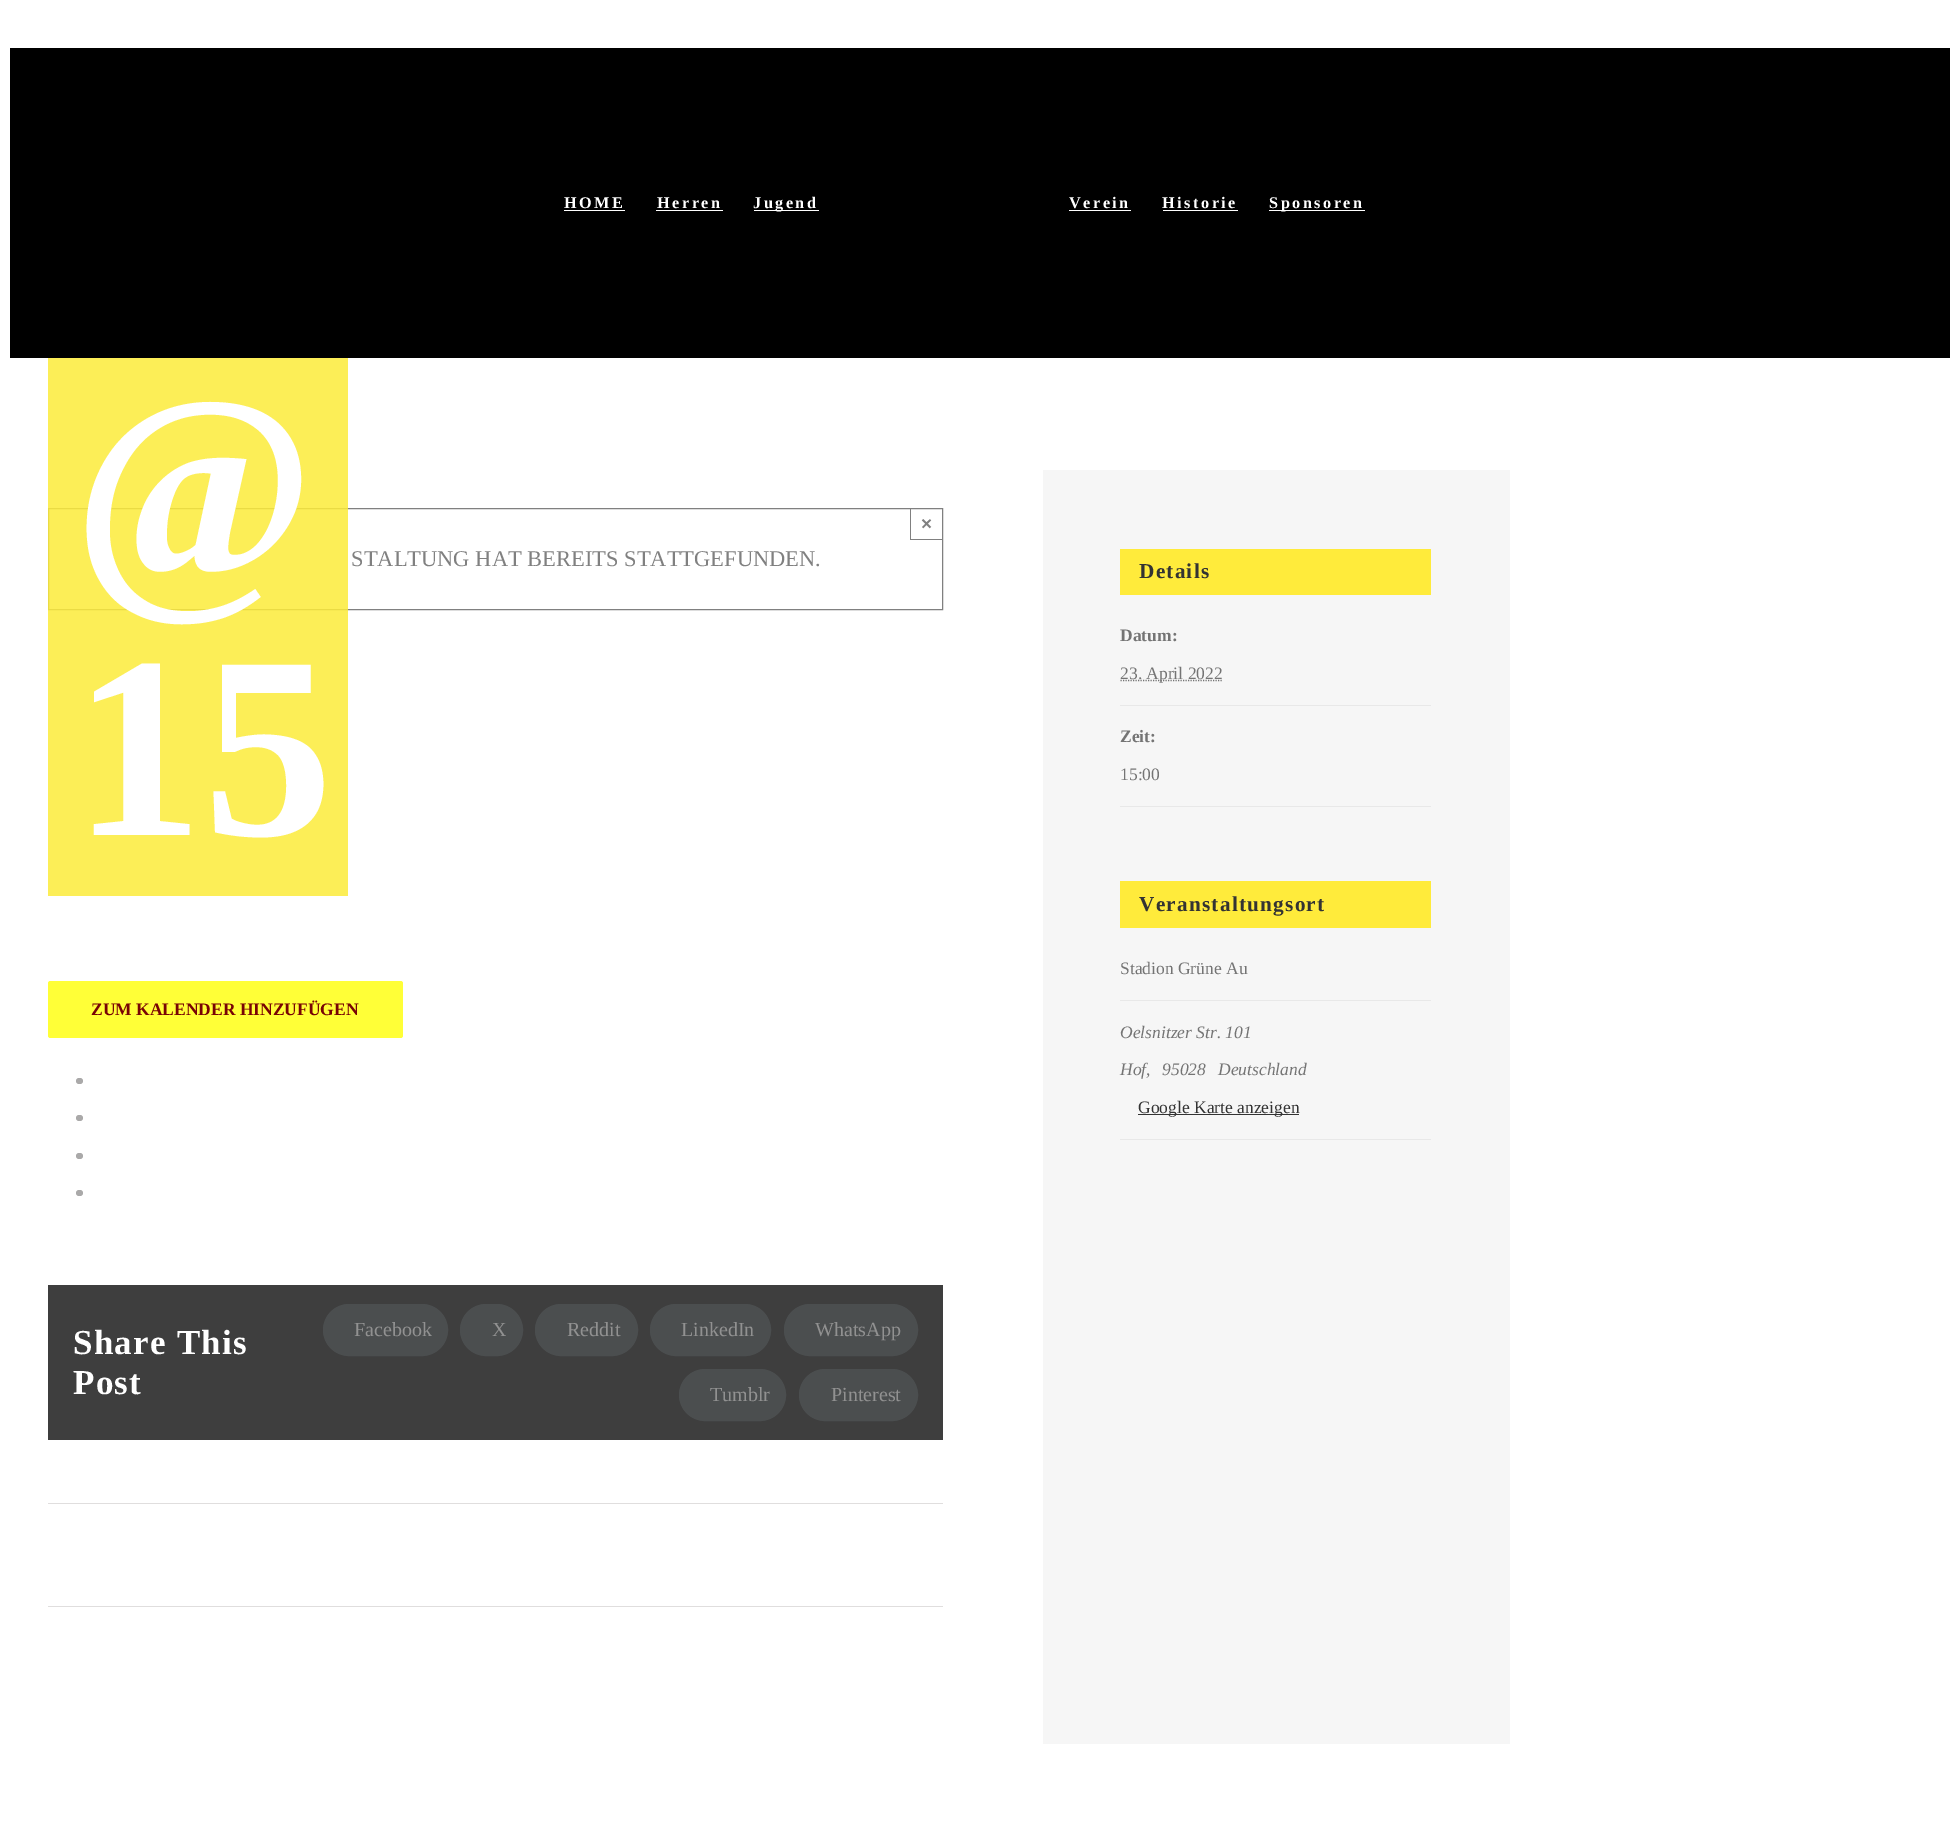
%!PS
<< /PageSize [1959 1829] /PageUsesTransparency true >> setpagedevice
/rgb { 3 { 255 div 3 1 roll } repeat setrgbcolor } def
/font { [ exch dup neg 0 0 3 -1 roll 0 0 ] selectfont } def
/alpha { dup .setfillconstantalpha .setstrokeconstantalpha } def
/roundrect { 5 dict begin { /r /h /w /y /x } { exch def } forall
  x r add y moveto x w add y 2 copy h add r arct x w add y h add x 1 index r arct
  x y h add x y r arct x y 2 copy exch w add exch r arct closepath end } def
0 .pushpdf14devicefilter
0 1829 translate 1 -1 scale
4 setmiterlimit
255 255 255 rgb
0 0 1959 1829 rectfill
[
  [10 48 1940 310 0 0 0]
  [564 210 61 1 255 255 255]
  [656 210 67 1 255 255 255]
  [754 210 65 1 255 255 255]
  [1069 210 62 1 255 255 255]
  [1163 210 75 1 255 255 255]
  [1269 210 96 1 255 255 255]
] { aload pop rgb rectfill } forall
128 128 128 rgb
48.5 508.5 894 101 rectstroke
0.85 alpha
252 235 58 rgb
48 358 300 538 rectfill
1 alpha
255 255 55 rgb
48 981 355 57 2.5 roundrect fill
170 169 169 rgb
76 1078 7 6 3 roundrect fill
76 1115 7 6 3 roundrect fill
76 1153 7 6 3 roundrect fill
76 1190 7 6 3 roundrect fill
[
  [910 539 33 1 128 128 128]
  [910 508 1 32 128 128 128]
  [48 1285 895 155 62 62 62]
] { aload pop rgb rectfill } forall
75 78 79 rgb
323.5 1304.5 124 51 25.5 roundrect gsave fill grestore
stroke
460.5 1304.5 62 51 25.5 roundrect gsave fill grestore
stroke
535.5 1304.5 102 51 25.5 roundrect gsave fill grestore
stroke
650.5 1304.5 120 51 25.5 roundrect gsave fill grestore
stroke
784.5 1304.5 133 51 25.5 roundrect gsave fill grestore
stroke
679.5 1369.5 106 51 25.5 roundrect gsave fill grestore
stroke
799.5 1369.5 118 51 25.5 roundrect gsave fill grestore
stroke
[
  [48 1503 895 1 224 222 222]
  [48 1606 895 1 224 222 222]
  [1043 470 467 1274 246 246 246]
  [1120 549 311 46 255 235 59]
  [1120 705 311 1 232 232 232]
] { aload pop rgb rectfill } forall
116 116 116 rgb
1.2 setlinewidth
[1.25 1.25] 0 setdash
1120.5 680.5 moveto 1223 680.5 lineto stroke
[
  [1120 806 311 1 232 232 232]
  [1120 881 311 47 255 235 59]
  [1120 1000 311 1 232 232 232]
  [1120 1139 311 1 232 232 232]
  [1138 1114 161 1 51 51 51]
] { aload pop rgb rectfill } forall
/LiberationSerif-Bold 16.25 font
255 255 255 rgb
564 208 moveto 2.5 0 (HOME) ashow
657 208 moveto 2.5 0 (Herren) ashow
753 208 moveto 2.5 0 (Jugend) ashow
1069 208 moveto 2.5 0 (Verein) ashow
1162 208 moveto 2.5 0 (Historie) ashow
1269 208 moveto 2.5 0 (Sponsoren) ashow
/LiberationSerif-Bold 260 font
73 575 moveto (@) show
73 835 moveto (15) show
/LiberationSerif-Bold 17.5 font
120 4 4 rgb
91 1015 moveto (ZUM KALENDER HINZUFÜGEN) show
/LiberationSans-Bold 19 font
128 128 128 rgb
921 530 moveto (×) show
/LiberationSerif-Regular 22.5 font
351 566 moveto (STALTUNG HAT BEREITS STATTGEFUNDEN.) show
/LiberationSerif-Bold 35 font
255 255 255 rgb
73 1354 moveto 1.25 0 (Share This) ashow
73 1394 moveto 1.25 0 (Post) ashow
/LiberationSerif-Regular 20 font
145 145 145 rgb
[
  [(Facebook) 354 1336]
  [(X) 492 1336]
  [(Reddit) 567 1336]
  [(LinkedIn) 681 1336]
  [(WhatsApp) 815 1336]
  [(Tumblr) 710 1401]
  [(Pinterest) 831 1401]
] { aload pop moveto show } forall
/LiberationSerif-Bold 21.25 font
51 51 51 rgb
1139 578 moveto 1.25 0 (Details) ashow
/LiberationSerif-Bold 17.5 font
116 116 116 rgb
1120 641 moveto (Datum:) show
/LiberationSerif-Regular 17.5 font
1120 679 moveto (23. April 2022) show
/LiberationSerif-Bold 17.5 font
1120 742 moveto (Zeit:) show
/LiberationSerif-Regular 17.5 font
1120 780 moveto (15:00) show
/LiberationSerif-Bold 21.25 font
51 51 51 rgb
1139 911 moveto 1.25 0 (Veranstaltungsort) ashow
/LiberationSerif-Regular 17.5 font
116 116 116 rgb
1120 974 moveto (Stadion Grüne Au) show
/LiberationSerif-Italic 17.5 font
[
  [(Oelsnitzer Str. 101) 1120 1038]
  [(Hof,) 1120 1075]
  [(95028) 1162 1075]
  [(Deutschland) 1218 1075]
] { aload pop moveto show } forall
/LiberationSerif-Regular 17.5 font
51 51 51 rgb
1138 1113 moveto (Google Karte anzeigen) show
.poppdf14devicefilter showpage
